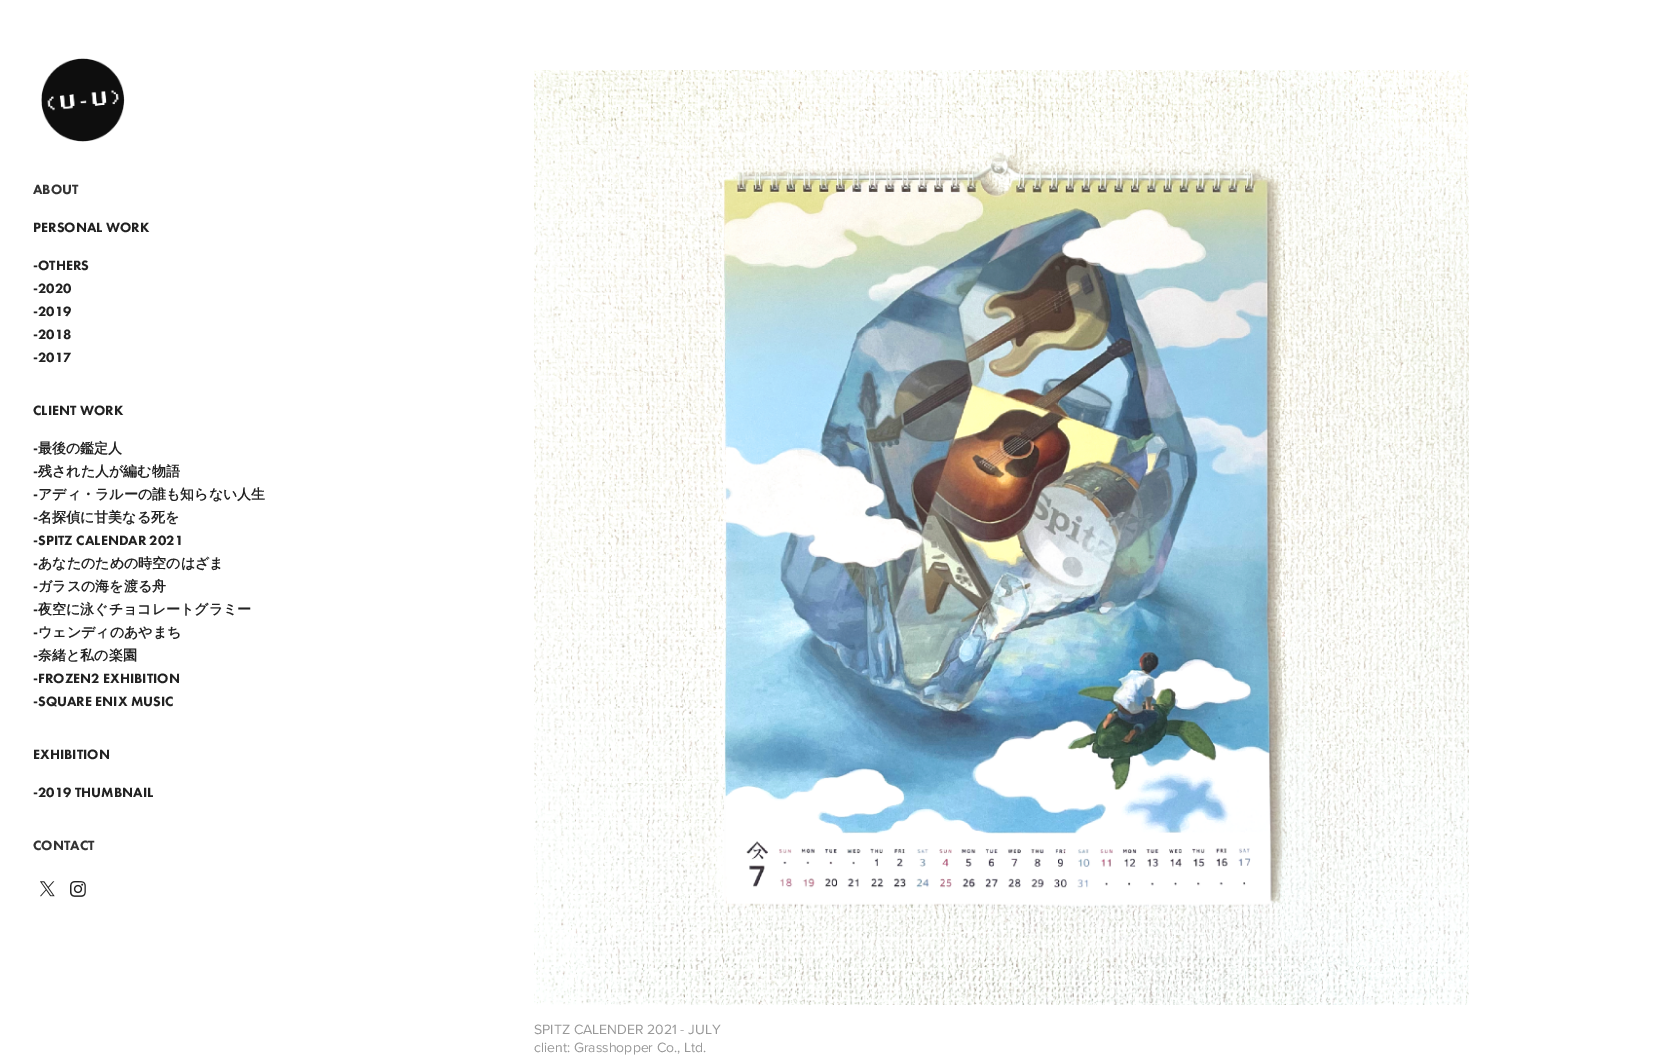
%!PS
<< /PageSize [1669 1056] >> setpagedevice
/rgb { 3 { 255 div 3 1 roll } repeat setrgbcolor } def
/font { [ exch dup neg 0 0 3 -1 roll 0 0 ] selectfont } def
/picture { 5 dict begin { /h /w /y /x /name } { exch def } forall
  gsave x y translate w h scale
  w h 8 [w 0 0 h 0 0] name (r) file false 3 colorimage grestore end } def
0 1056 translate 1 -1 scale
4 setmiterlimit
255 255 255 rgb
0 0 1669 1056 rectfill
(img/1.rgb) 41 58 84 84 picture
(img/2.rgb) 40 881 15 16 picture
(img/3.rgb) 70 881 16 16 picture
(img/4.rgb) 534 70 935 935 picture
/FuturaPT-Black 14 font
51 51 51 rgb
33 194 moveto (ABOUT) show
34 34 34 rgb
[
  [(PERSONAL WORK) 33 232]
  [(-OTHERS) 33 270]
  [(-2020) 33 293]
  [(-2019) 33 316]
  [(-2018) 33 339]
  [(-2017) 33 362]
  [(CLIENT WORK) 33 415]
  [(-) 33 453]
] { aload pop moveto show } forall
/WenQuanYiZenHei-Bold 14 font
38 453 moveto (最後の鑑定人) show
/FuturaPT-Black 14 font
33 476 moveto (-) show
/WenQuanYiZenHei-Bold 14 font
38 476 moveto (残された人が編む物語) show
/FuturaPT-Black 14 font
33 499 moveto (-) show
/WenQuanYiZenHei-Bold 14 font
38 499 moveto (アディ・ラルーの誰も知らない人生) show
/FuturaPT-Black 14 font
33 522 moveto (-) show
/WenQuanYiZenHei-Bold 14 font
38 522 moveto (名探偵に甘美なる死を) show
/FuturaPT-Black 14 font
33 545 moveto (-SPITZ CALENDAR 2021) show
33 568 moveto (-) show
/WenQuanYiZenHei-Bold 14 font
38 568 moveto (あなたのための時空のはざま) show
/FuturaPT-Black 14 font
33 591 moveto (-) show
/WenQuanYiZenHei-Bold 14 font
38 591 moveto (ガラスの海を渡る舟) show
/FuturaPT-Black 14 font
33 614 moveto (-) show
/WenQuanYiZenHei-Bold 14 font
38 614 moveto (夜空に泳ぐチョコレートグラミー) show
/FuturaPT-Black 14 font
33 637 moveto (-) show
/WenQuanYiZenHei-Bold 14 font
38 637 moveto (ウェンディのあやまち) show
/FuturaPT-Black 14 font
33 660 moveto (-) show
/WenQuanYiZenHei-Bold 14 font
38 660 moveto (奈緒と私の楽園) show
/FuturaPT-Black 14 font
[
  [(-FROZEN2 EXHIBITION) 33 683]
  [(-SQUARE ENIX MUSIC) 33 706]
  [(EXHIBITION) 33 759]
  [(-2019 THUMBNAIL) 33 797]
] { aload pop moveto show } forall
51 51 51 rgb
33 850 moveto (CONTACT) show
/ProximaNova-Regular 14 font
153 153 153 rgb
534 1034 moveto (SPITZ CALENDER 2021 - JULY) show
534 1052 moveto (client: Grasshopper Co., Ltd.) show
showpage
